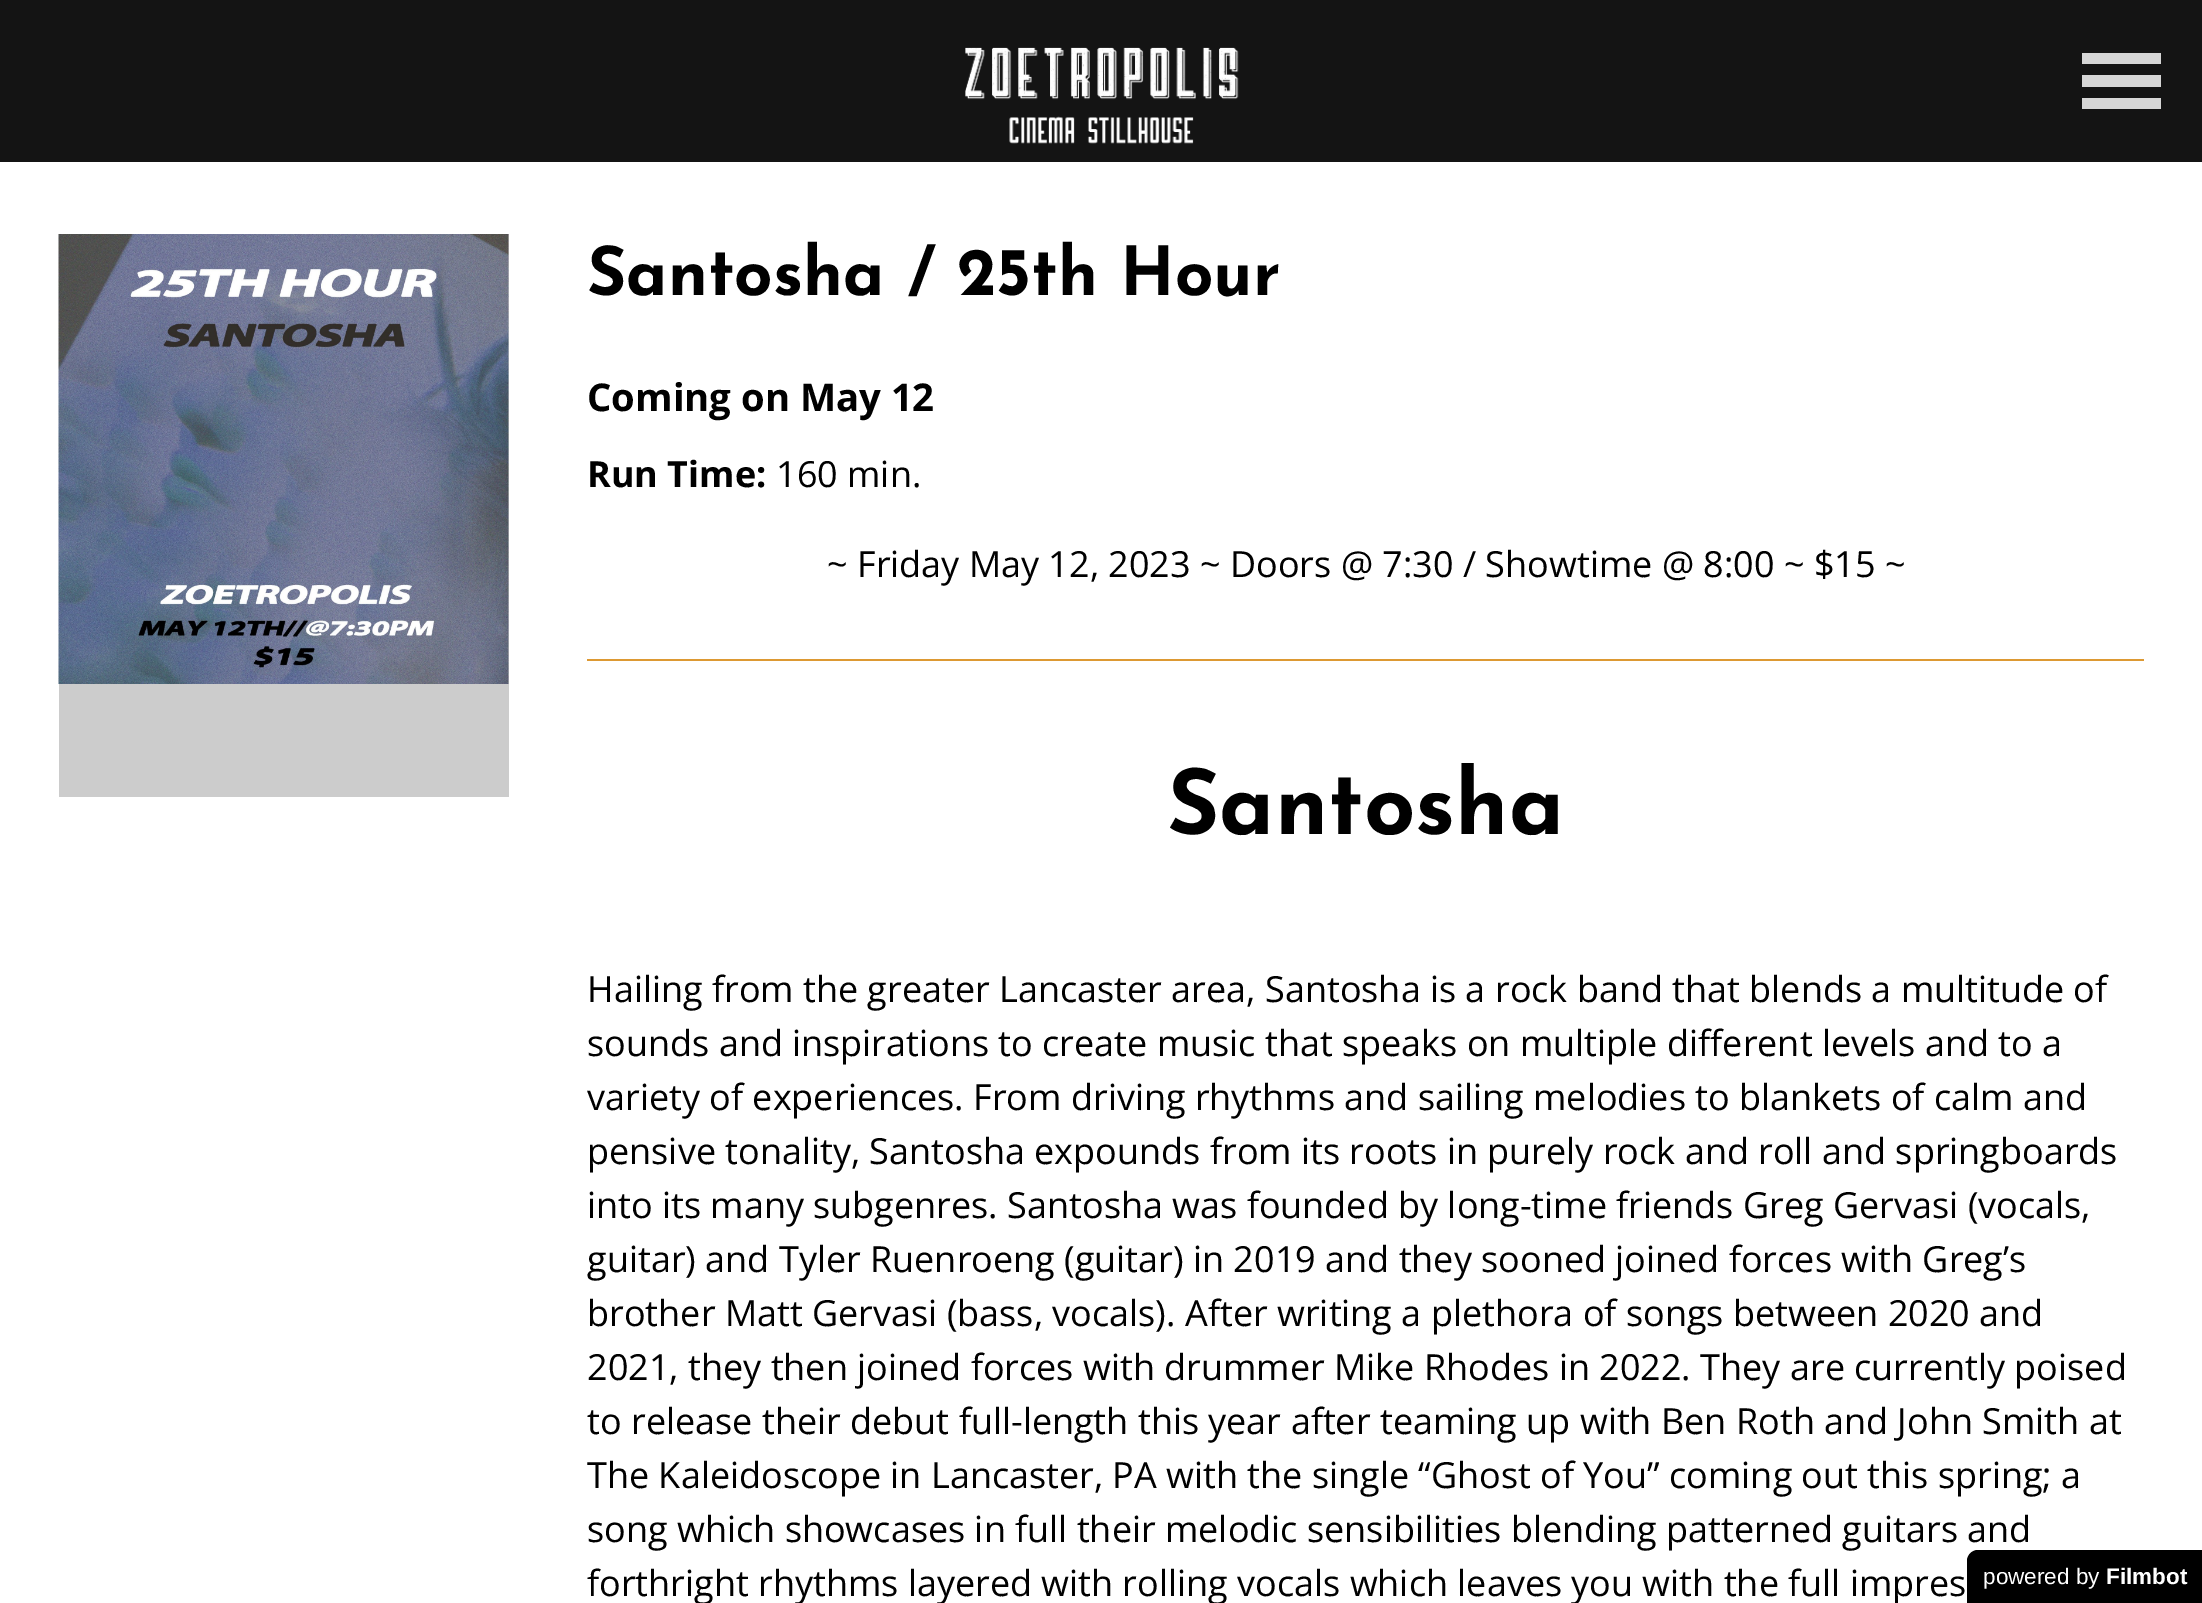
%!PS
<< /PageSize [2202 1603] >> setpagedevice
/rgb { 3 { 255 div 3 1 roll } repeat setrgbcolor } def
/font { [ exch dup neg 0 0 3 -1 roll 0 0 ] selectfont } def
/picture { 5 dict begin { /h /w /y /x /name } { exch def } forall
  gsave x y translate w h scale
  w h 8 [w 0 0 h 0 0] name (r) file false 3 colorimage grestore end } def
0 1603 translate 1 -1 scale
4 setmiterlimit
255 255 255 rgb
0 0 2202 1603 rectfill
20 20 20 rgb
0 0 2202 162 rectfill
(img/1.rgb) 965 47 274 97 picture
214 214 214 rgb
2082 53 moveto 2082 64 lineto 2161 64 lineto 2161 53 lineto closepath 2082 75 moveto 2082 87 lineto 2161 87 lineto 2161 75 lineto closepath 2082 98 moveto 2082 109 lineto 2161 109 lineto 2161 98 lineto closepath fill
204 204 204 rgb
59 234 450 563 rectfill
(img/2.rgb) 58 234 451 450 picture
221 153 51 rgb
587 659 1557 2 rectfill
0 0 0 rgb
1978 1550 moveto 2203 1550 lineto 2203 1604 lineto 1967 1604 lineto 1967 1561 lineto 1967 1555 1972 1550 1978 1550 curveto closepath fill
/JosefinSans-Bold 67.5 font
587 295 moveto (Santosha / 25th Hour) show
/OpenSans-Bold 38.25 font
587 411 moveto (Coming on May 12) show
/OpenSans-Bold 36 font
587 487 moveto (Run Time:) show
/OpenSans-Regular 36 font
776 487 moveto (160 min.) show
827 577 moveto (~ Friday May 12, 2023 ~ Doors @ 7:30 / Showtime @ 8:00 ~ $15 ~) show
/JosefinSans-Bold 90 font
1167 834 moveto (Santosha) show
/OpenSans-Regular 36 font
[
  [(Hailing from the greater Lancaster area, Santosha is a rock band that blends a multitude of) 587 1002]
  [(sounds and inspirations to create music that speaks on multiple different levels and to a) 587 1056]
  [(variety of experiences. From driving rhythms and sailing melodies to blankets of calm and) 587 1110]
  [(pensive tonality, Santosha expounds from its roots in purely rock and roll and springboards) 587 1164]
  [(into its many subgenres. Santosha was founded by long-time friends Greg Gervasi \(vocals,) 587 1218]
  [(guitar\) and Tyler Ruenroeng \(guitar\) in 2019 and they sooned joined forces with Greg’s) 587 1272]
  [(brother Matt Gervasi \(bass, vocals\). After writing a plethora of songs between 2020 and) 587 1326]
  [(2021, they then joined forces with drummer Mike Rhodes in 2022. They are currently poised) 587 1380]
  [(to release their debut full-length this year after teaming up with Ben Roth and John Smith at) 587 1434]
  [(The Kaleidoscope in Lancaster, PA with the single “Ghost of You” coming out this spring; a) 587 1488]
  [(song which showcases in full their melodic sensibilities blending patterned guitars and) 587 1542]
  [(forthright rhythms layered with rolling vocals which leaves you with the full impres) 587 1596]
] { aload pop moveto show } forall
/LiberationSans-Regular 22.5 font
255 255 255 rgb
1983 1584 moveto (powered by) show
/LiberationSans-Bold 22.5 font
2106 1584 moveto (Filmbot) show
showpage
